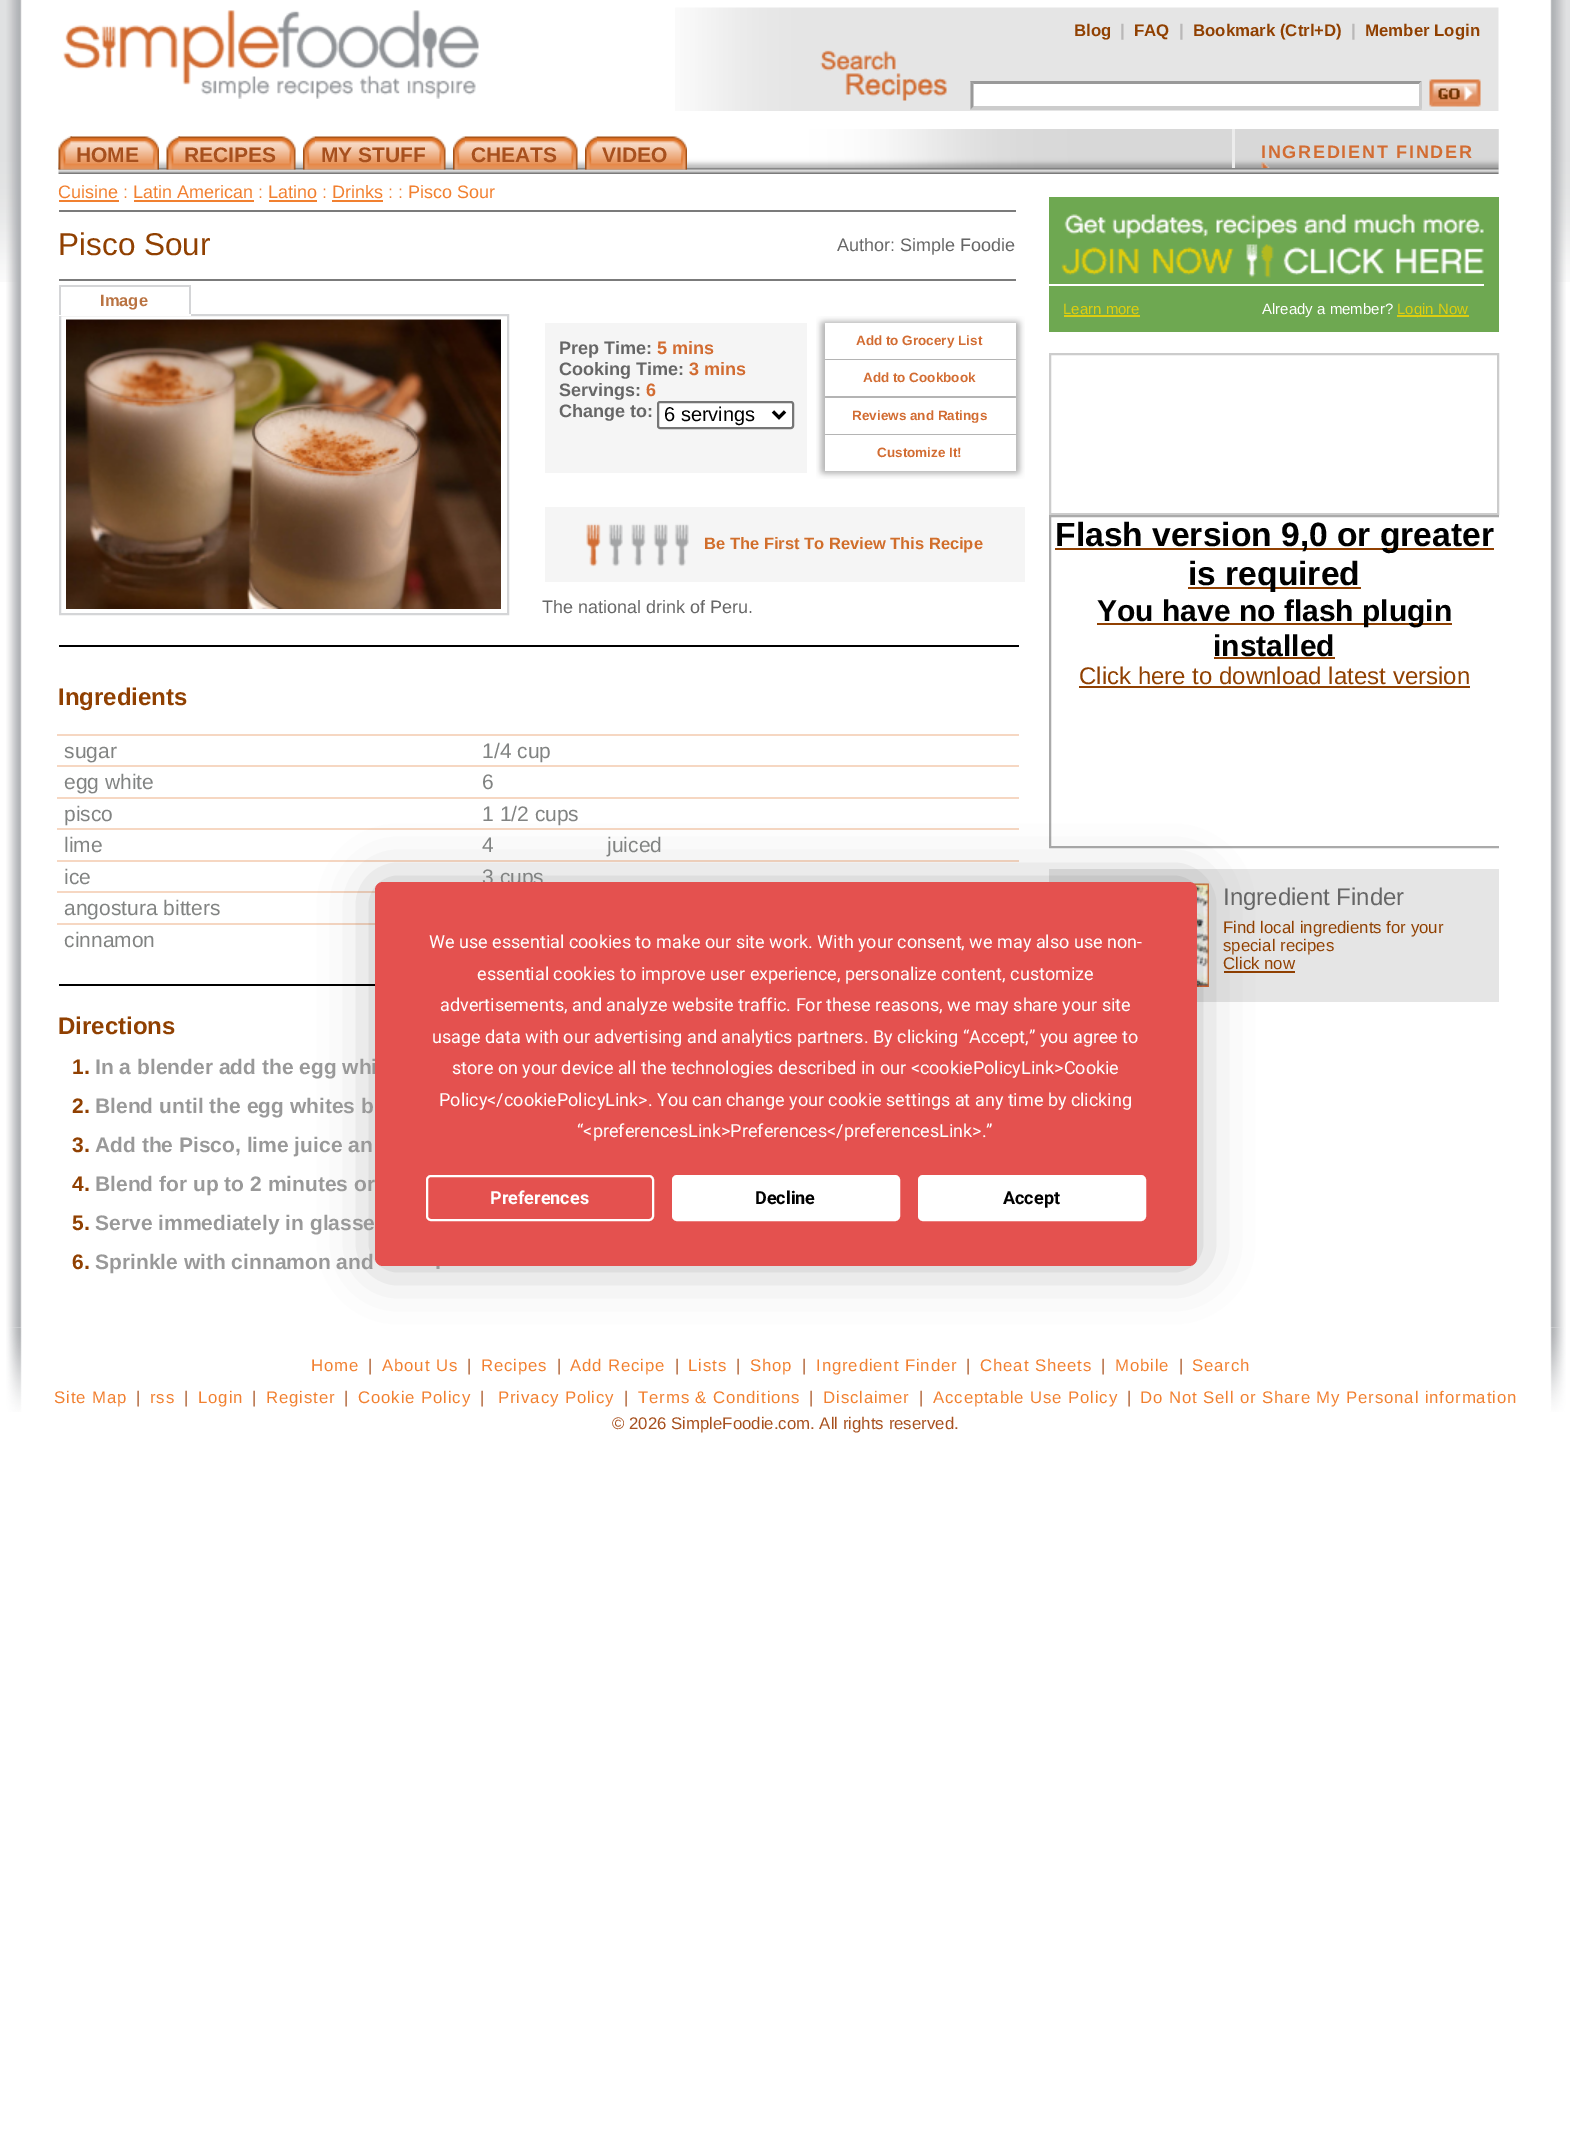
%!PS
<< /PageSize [1570 2148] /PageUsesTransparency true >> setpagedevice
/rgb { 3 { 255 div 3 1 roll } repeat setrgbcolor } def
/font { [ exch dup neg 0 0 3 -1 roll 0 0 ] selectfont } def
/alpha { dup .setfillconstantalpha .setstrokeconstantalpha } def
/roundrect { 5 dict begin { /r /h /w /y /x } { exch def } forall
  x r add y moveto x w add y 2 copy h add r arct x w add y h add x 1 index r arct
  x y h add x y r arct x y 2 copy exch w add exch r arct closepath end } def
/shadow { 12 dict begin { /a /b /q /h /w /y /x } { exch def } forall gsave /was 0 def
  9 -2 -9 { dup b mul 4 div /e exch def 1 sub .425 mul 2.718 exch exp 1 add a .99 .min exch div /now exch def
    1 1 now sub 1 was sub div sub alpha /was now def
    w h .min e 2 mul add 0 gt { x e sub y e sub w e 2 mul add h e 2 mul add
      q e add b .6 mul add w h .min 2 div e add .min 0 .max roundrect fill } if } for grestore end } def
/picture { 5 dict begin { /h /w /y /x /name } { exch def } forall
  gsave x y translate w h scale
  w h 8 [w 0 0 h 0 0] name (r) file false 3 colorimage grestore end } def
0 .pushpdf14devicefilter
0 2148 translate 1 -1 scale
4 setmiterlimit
255 255 255 rgb
0 0 1570 2148 rectfill
(img/1.rgb) 0 0 1570 282 picture
(img/2.rgb) 6 0 1560 1328 picture
(img/3.rgb) 675 7 824 104 picture
(img/4.rgb) 63 10 416 89 picture
(img/5.rgb) 820 50 127 51 picture
971 81 451 29 rectfill
153 153 153 rgb
970 81 moveto 1422 81 lineto 1419 84 lineto 974 84 lineto closepath fill
204 204 204 rgb
1422 81 moveto 1422 109.5 lineto 1419 106.5 lineto 1419 84 lineto closepath fill
1422 110 moveto 970 110 lineto 974 106 lineto 1419 106 lineto closepath fill
153 153 153 rgb
970.5 109.5 moveto 970.5 81 lineto 973.5 84 lineto 973.5 106.5 lineto closepath fill
(img/6.rgb) 1429 79 52 28 picture
(img/7.rgb) 1498 129 1 45 picture
(img/8.rgb) 58 129 1441 45 picture
(img/9.rgb) 58 136 14 34 picture
(img/10.rgb) 70 136 89 34 picture
(img/11.rgb) 166 136 14 34 picture
(img/12.rgb) 178 136 118 34 picture
(img/13.rgb) 303 136 12 34 picture
(img/14.rgb) 315 136 131 34 picture
(img/13.rgb) 453 136 12 34 picture
(img/15.rgb) 465 136 113 34 picture
(img/13.rgb) 585 136 12 34 picture
(img/16.rgb) 597 136 90 34 picture
236 236 236 rgb
1232 129 3 39 rectfill
(img/17.rgb) 1261 162 9 6 picture
[
  [59 210 957 2 123 123 123]
  [59 200 60 2 241 128 48]
  [134 200 120 2 241 128 48]
  [269 200 48 2 241 128 48]
  [332 200 51 2 241 128 48]
  [59 279 957 2 123 123 123]
  [59 285 132 2 212 213 215]
] { aload pop rgb rectfill } forall
2 setlinewidth
60 315 448 299 rectstroke
[
  [189 285 2 30 212 213 215]
  [59 314 132 2 255 255 255]
  [59 285 2 30 212 213 215]
] { aload pop rgb rectfill } forall
(img/18.rgb) 66 319 435 290 picture
245 245 245 rgb
545 323 262 150 rectfill
255 255 255 rgb
658 402 135 26 2 roundrect gsave fill grestore
118 118 118 rgb
stroke
0 0 0 rgb
3 setlinewidth
773 411.5 moveto 779 417.5 lineto 785 411.5 lineto stroke
(img/19.rgb) 816 316 209 163 picture
[
  [825 323 191 36 255 255 255]
  [825 360 191 36 255 255 255]
  [825 398 191 36 255 255 255]
  [825 435 191 36 255 255 255]
  [545 507 480 75 245 245 245]
] { aload pop rgb rectfill } forall
(img/20.rgb) 586 523 103 44 picture
[
  [59 645 960 2 0 0 0]
  [57 734 962 2 246 215 194]
  [57 765 962 2 246 215 194]
  [57 797 962 2 246 215 194]
  [57 828 962 2 246 215 194]
  [57 860 962 2 246 215 194]
  [57 891 318 2 246 215 194]
  [57 923 318 2 246 215 194]
  [59 984 316 2 0 0 0]
  [1049 197 450 135 110 168 81]
] { aload pop rgb rectfill } forall
(img/21.rgb) 1061 214 423 64 picture
[
  [1049 284 435 2 255 255 255]
  [1064 315 76 2 222 205 15]
  [1397 315 72 2 222 205 15]
] { aload pop rgb rectfill } forall
204 204 204 rgb
2 setlinewidth
1050 354 448 160 rectstroke
gsave
1049 174 450 849 rectclip
170 170 170 rgb
1050 516 451 331 rectstroke
grestore
[
  [1055 548 439 2 144 64 1]
  [1188 587 173 2 144 64 1]
  [1097 623 355 2 144 64 1]
  [1214 657 121 2 144 64 1]
  [1079 686 391 2 144 64 1]
  [1049 869 450 133 229 229 229]
] { aload pop rgb rectfill } forall
(img/22.rgb) 1192 883 17 104 picture
144 64 1 rgb
1224 971 71 2 rectfill
(img/23.rgb) 6 1327 1560 85 picture
0 0 0 rgb
375 882 822 384 8 26 0.25 shadow
/LiberationSans-Bold 16.8 font
144 64 1 rgb
1074 36 moveto (Blog) show
185 184 184 rgb
1120 36 moveto (|) show
144 64 1 rgb
1134 36 moveto (FAQ) show
185 184 184 rgb
1179 36 moveto (|) show
144 64 1 rgb
1193 36 moveto (Bookmark \(Ctrl+D\)) show
185 184 184 rgb
1351 36 moveto (|) show
144 64 1 rgb
1365 36 moveto (Member Login) show
/LiberationSans-Bold 21 font
167 80 30 rgb
[
  [(HOME) 76 162]
  [(RECIPES) 184 162]
  [(MY STUFF) 321 162]
  [(CHEATS) 471 162]
  [(VIDEO) 602 162]
] { aload pop moveto show } forall
/LiberationSans-Bold 18 font
210 108 50 rgb
1261 158 moveto 1.75 0 (INGREDIENT FINDER) ashow
/LiberationSans-Regular 18 font
241 128 48 rgb
58 198 moveto (Cuisine : Latin American : Latino : Drinks : : Pisco Sour) show
/LiberationSans-Regular 31.5 font
144 64 1 rgb
58 255 moveto (Pisco Sour) show
/LiberationSans-Regular 18 font
102 102 102 rgb
837 251 moveto (Author: Simple Foodie) show
/LiberationSans-Bold 16.5 font
185 115 66 rgb
100 306 moveto (Image) show
/LiberationSans-Bold 18 font
102 102 102 rgb
559 354 moveto (Prep Time:) show
210 108 50 rgb
657 354 moveto (5 mins) show
102 102 102 rgb
559 375 moveto (Cooking Time:) show
210 108 50 rgb
689 375 moveto (3 mins) show
102 102 102 rgb
559 396 moveto (Servings:) show
210 108 50 rgb
646 396 moveto (6) show
102 102 102 rgb
559 417 moveto (Change to:) show
gsave
665 402 103 26 rectclip
/LiberationSans-Regular 20 font
0 0 0 rgb
664 421 moveto (6 servings) show
grestore
/LiberationSans-Bold 13.5 font
210 108 50 rgb
[
  [(Add to Grocery List) 856 345]
  [(Add to Cookbook) 863 382]
  [(Reviews and Ratings) 852 420]
  [(Customize It!) 877 457]
] { aload pop moveto show } forall
/LiberationSans-Bold 16.5 font
209 110 43 rgb
704 549 moveto (Be The First To Review This Recipe) show
/LiberationSans-Regular 18 font
102 102 102 rgb
542 613 moveto (The national drink of Peru.) show
/LiberationSans-Bold 24 font
144 64 1 rgb
58 705 moveto (Ingredients) show
/LiberationSans-Regular 21 font
129 131 130 rgb
[
  [(sugar) 64 758]
  [(1/4 cup) 482 758]
  [(egg white) 64 789]
  [(6) 482 789]
  [(pisco) 64 821]
  [(1 1/2 cups) 482 821]
  [(lime) 64 852]
  [(4) 482 852]
  [(juiced) 607 852]
  [(ice) 64 884]
  [(3 cups) 482 884]
  [(angostura bitters) 64 915]
  [(cinnamon) 64 947]
] { aload pop moveto show } forall
/LiberationSans-Bold 24 font
144 64 1 rgb
58 1034 moveto (Directions) show
/LiberationSans-Bold 21 font
72 1074 moveto (1.) show
153 153 153 rgb
95 1074 moveto (In a blender add the egg whi) show
144 64 1 rgb
72 1113 moveto (2.) show
153 153 153 rgb
95 1113 moveto (Blend until the egg whites b) show
144 64 1 rgb
72 1152 moveto (3.) show
153 153 153 rgb
95 1152 moveto (Add the Pisco, lime juice an) show
144 64 1 rgb
72 1191 moveto (4.) show
153 153 153 rgb
95 1191 moveto (Blend for up to 2 minutes or) show
144 64 1 rgb
72 1230 moveto (5.) show
153 153 153 rgb
95 1230 moveto (Serve immediately in glasse) show
144 64 1 rgb
72 1269 moveto (6.) show
153 153 153 rgb
95 1269 moveto (Sprinkle with cinnamon and) show
435 1269 moveto (.) show
/LiberationSans-Regular 15 font
222 205 15 rgb
1063 314 moveto (Learn more) show
255 255 255 rgb
1262 314 moveto (Already a member?) show
222 205 15 rgb
1397 314 moveto (Login Now) show
/LiberationSans-Bold 33.6 font
0 0 0 rgb
1055 546 moveto (Flash version 9,0 or greater) show
1188 585 moveto (is required) show
/LiberationSans-Bold 30 font
1097 621 moveto (You have no flash plugin) show
1213 656 moveto (installed) show
/LiberationSans-Regular 24 font
144 64 1 rgb
1079 684 moveto (Click here to download latest version) show
102 102 102 rgb
1223 905 moveto (Ingredient Finder) show
/LiberationSans-Regular 16.8 font
144 64 1 rgb
[
  [(Find local ingredients for your) 1223 933]
  [(special recipes) 1223 951]
  [(Click now) 1223 969]
] { aload pop moveto show } forall
228 81 79 rgb
375 882 822 384 8 roundrect fill
/Roboto-Regular 18 font
255 255 255 rgb
[
  [(We use essential cookies to make our site work. With your consent, we may also use non-) 429 948]
  [(essential cookies to improve user experience, personalize content, customize) 477 980]
  [(advertisements, and analyze website traffic. For these reasons, we may share your site) 440 1011]
  [(usage data with our advertising and analytics partners. By clicking “Accept,” you agree to) 432 1043]
  [(store on your device all the technologies described in our <cookiePolicyLink>Cookie) 452 1074]
  [(Policy</cookiePolicyLink>. You can change your cookie settings at any time by clicking) 439 1106]
  [(“<preferencesLink>Preferences</preferencesLink>.”) 577 1137]
] { aload pop moveto show } forall
427 1176 226 44 4 roundrect stroke
/Roboto-Bold 18 font
490 1204 moveto (Preferences) show
673 1176 226 44 4 roundrect gsave fill grestore
stroke
0 0 0 rgb
755 1204 moveto (Decline) show
255 255 255 rgb
919 1176 226 44 4 roundrect gsave fill grestore
stroke
0 0 0 rgb
1003 1204 moveto (Accept) show
/LiberationSans-Regular 16.8 font
241 128 48 rgb
311 1371 moveto 0.85 0 (Home) ashow
167 80 30 rgb
368 1371 moveto (|) show
241 128 48 rgb
382 1371 moveto 0.85 0 (About Us) ashow
167 80 30 rgb
467 1371 moveto (|) show
241 128 48 rgb
481 1371 moveto 0.85 0 (Recipes) ashow
167 80 30 rgb
557 1371 moveto (|) show
241 128 48 rgb
570 1371 moveto 0.85 0 (Add Recipe) ashow
167 80 30 rgb
675 1371 moveto (|) show
241 128 48 rgb
688 1371 moveto 0.85 0 (Lists) ashow
167 80 30 rgb
736 1371 moveto (|) show
241 128 48 rgb
750 1371 moveto 0.85 0 (Shop) ashow
167 80 30 rgb
802 1371 moveto (|) show
241 128 48 rgb
816 1371 moveto 0.85 0 (Ingredient Finder) ashow
167 80 30 rgb
966 1371 moveto (|) show
241 128 48 rgb
980 1371 moveto 0.85 0 (Cheat Sheets) ashow
167 80 30 rgb
1101 1371 moveto (|) show
241 128 48 rgb
1115 1371 moveto 0.85 0 (Mobile) ashow
167 80 30 rgb
1179 1371 moveto (|) show
241 128 48 rgb
1192 1371 moveto 0.85 0 (Search) ashow
54 1403 moveto 0.85 0 (Site Map) ashow
167 80 30 rgb
136 1403 moveto (|) show
241 128 48 rgb
150 1403 moveto 0.85 0 (rss) ashow
167 80 30 rgb
184 1403 moveto (|) show
241 128 48 rgb
198 1403 moveto 0.85 0 (Login) ashow
167 80 30 rgb
252 1403 moveto (|) show
241 128 48 rgb
266 1403 moveto 0.85 0 (Register) ashow
167 80 30 rgb
344 1403 moveto (|) show
241 128 48 rgb
358 1403 moveto 0.85 0 (Cookie Policy) ashow
167 80 30 rgb
480 1403 moveto (|) show
241 128 48 rgb
498 1403 moveto 0.85 0 (Privacy Policy) ashow
167 80 30 rgb
624 1403 moveto (|) show
241 128 48 rgb
638 1403 moveto 0.85 0 (Terms & Conditions) ashow
167 80 30 rgb
809 1403 moveto (|) show
241 128 48 rgb
823 1403 moveto 0.85 0 (Disclaimer) ashow
167 80 30 rgb
919 1403 moveto (|) show
241 128 48 rgb
933 1403 moveto 0.85 0 (Acceptable Use Policy) ashow
167 80 30 rgb
1127 1403 moveto (|) show
241 128 48 rgb
1140 1403 moveto 0.85 0 (Do Not Sell or Share My Personal information) ashow
167 80 30 rgb
612 1429 moveto (© 2026 SimpleFoodie.com. All rights reserved.) show
.poppdf14devicefilter showpage
